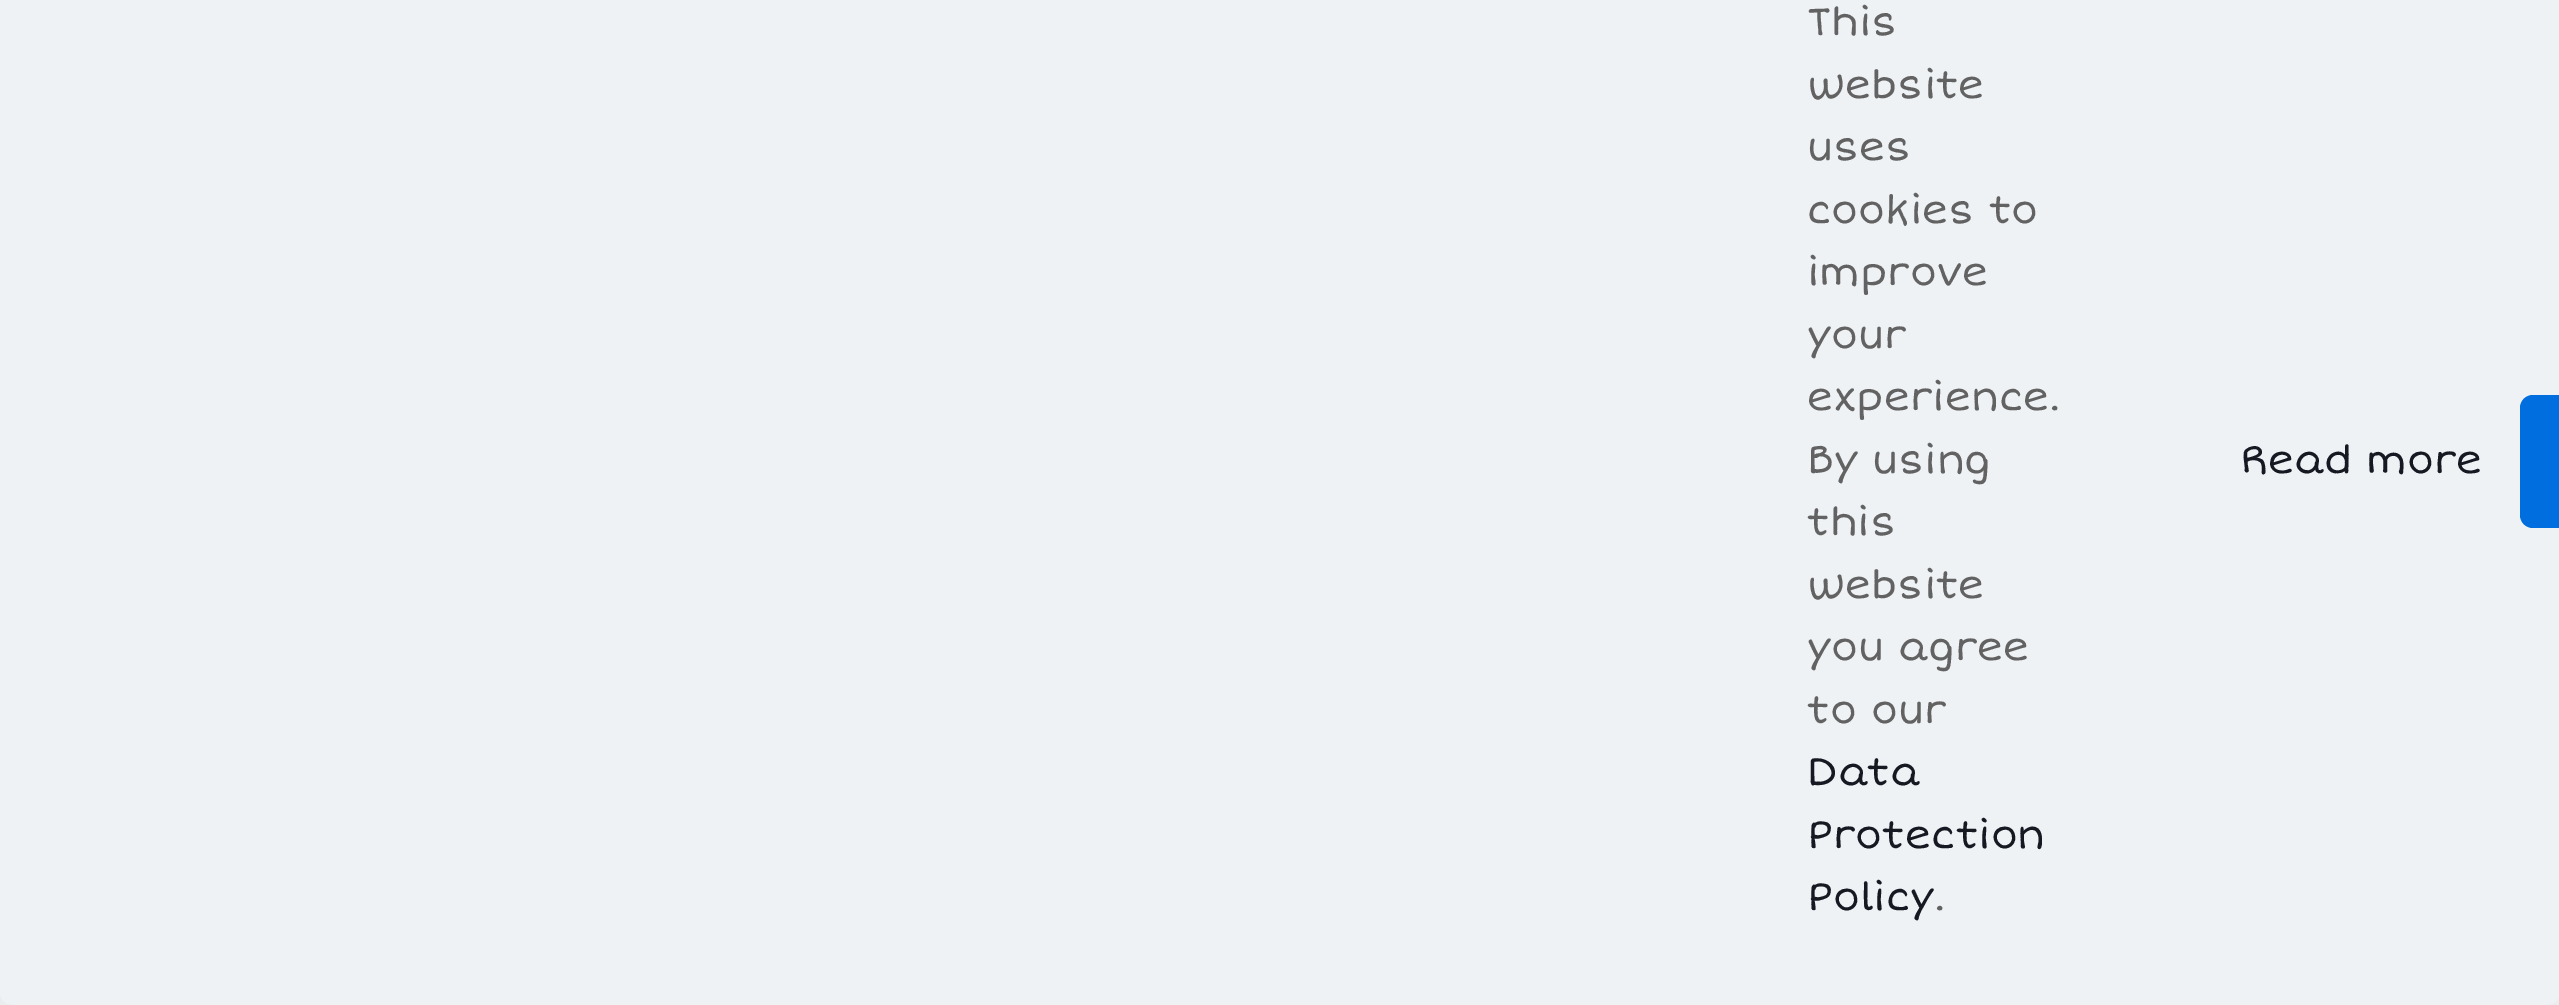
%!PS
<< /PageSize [2559 1005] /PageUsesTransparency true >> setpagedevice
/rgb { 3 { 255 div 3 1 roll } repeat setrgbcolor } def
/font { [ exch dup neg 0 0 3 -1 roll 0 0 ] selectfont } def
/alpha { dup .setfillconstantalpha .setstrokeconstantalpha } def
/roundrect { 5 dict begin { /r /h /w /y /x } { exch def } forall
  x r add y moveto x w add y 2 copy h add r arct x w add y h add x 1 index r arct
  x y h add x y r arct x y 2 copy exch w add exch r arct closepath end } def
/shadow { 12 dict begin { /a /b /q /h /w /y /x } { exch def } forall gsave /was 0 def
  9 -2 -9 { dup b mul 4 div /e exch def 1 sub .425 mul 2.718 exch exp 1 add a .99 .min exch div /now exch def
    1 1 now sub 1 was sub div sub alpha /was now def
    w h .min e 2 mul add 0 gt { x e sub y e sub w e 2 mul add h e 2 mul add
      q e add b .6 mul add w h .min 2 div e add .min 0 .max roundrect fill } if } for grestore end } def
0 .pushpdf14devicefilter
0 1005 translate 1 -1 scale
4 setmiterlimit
252 252 252 rgb
0 0 2559 1005 rectfill
1 7 39 rgb
0 -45 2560 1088 13 37.5 0.13 shadow
238 242 245 rgb
0 -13 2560 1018 13 roundrect fill
0 110 223 rgb
2520 395 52 133 13 roundrect fill
/ShortStack-Regular 40 font
98 98 98 rgb
[
  [(This) 1807 35]
  [(website) 1807 98]
  [(uses) 1807 160]
  [(cookies to) 1807 223]
  [(improve) 1807 285]
  [(your) 1807 348]
  [(experience.) 1807 410]
  [(By using) 1807 473]
  [(this) 1807 535]
  [(website) 1807 598]
  [(you agree) 1807 660]
  [(to our) 1807 723]
] { aload pop moveto show } forall
22 25 34 rgb
[
  [(Data) 1807 785]
  [(Protection) 1807 848]
  [(Policy) 1807 910]
] { aload pop moveto show } forall
98 98 98 rgb
1934 910 moveto (.) show
22 25 34 rgb
2240 473 moveto (Read more) show
.poppdf14devicefilter showpage
